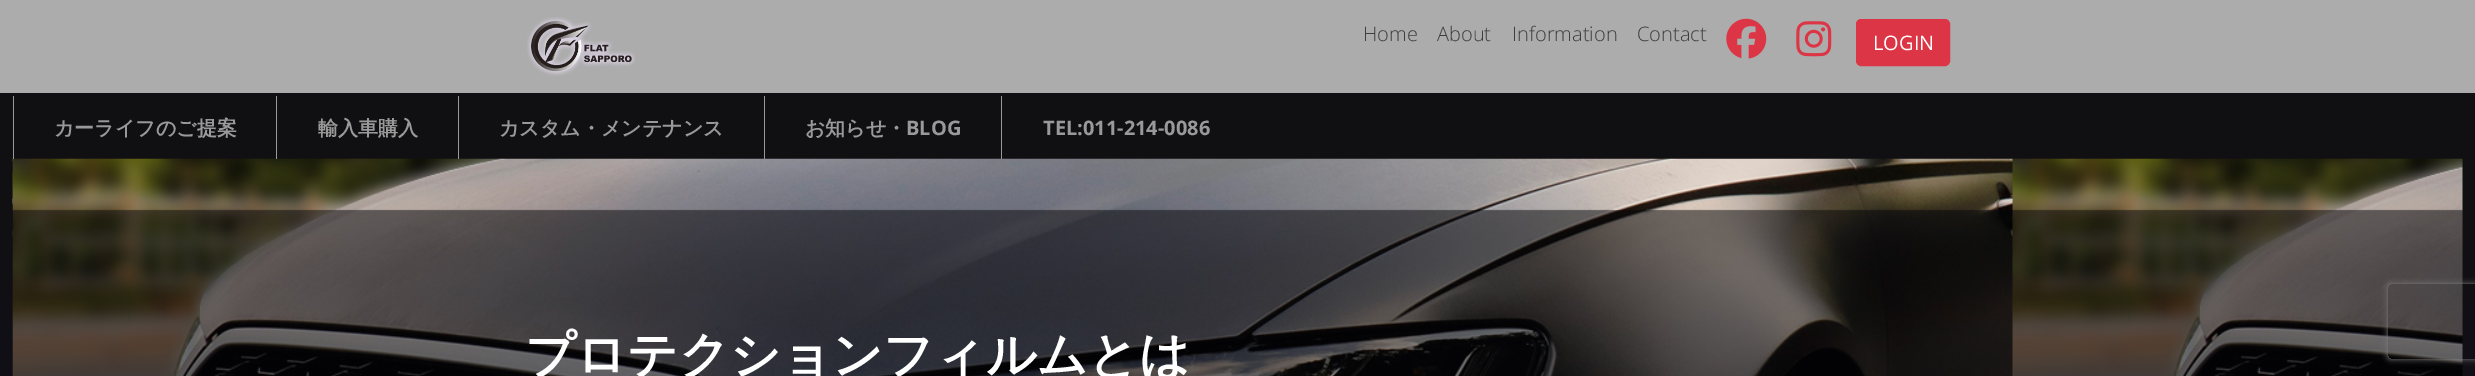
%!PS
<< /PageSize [2475 376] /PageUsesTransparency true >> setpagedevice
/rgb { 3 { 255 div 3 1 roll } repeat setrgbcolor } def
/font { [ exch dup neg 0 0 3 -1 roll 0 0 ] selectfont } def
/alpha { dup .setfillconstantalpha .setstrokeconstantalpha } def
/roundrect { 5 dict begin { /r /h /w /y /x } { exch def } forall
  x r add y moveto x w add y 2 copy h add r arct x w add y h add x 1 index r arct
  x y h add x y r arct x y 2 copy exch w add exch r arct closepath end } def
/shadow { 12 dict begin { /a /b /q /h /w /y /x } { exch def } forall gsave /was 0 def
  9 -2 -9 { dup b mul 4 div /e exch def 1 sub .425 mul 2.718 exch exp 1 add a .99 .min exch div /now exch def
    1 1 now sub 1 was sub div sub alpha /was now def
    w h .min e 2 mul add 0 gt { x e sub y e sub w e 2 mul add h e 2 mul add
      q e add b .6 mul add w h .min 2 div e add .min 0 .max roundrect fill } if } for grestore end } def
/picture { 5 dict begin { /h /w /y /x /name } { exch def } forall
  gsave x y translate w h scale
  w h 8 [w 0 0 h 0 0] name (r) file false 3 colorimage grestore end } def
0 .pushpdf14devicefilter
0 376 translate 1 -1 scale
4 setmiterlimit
255 255 255 rgb
0 0 2475 376 rectfill
gsave 0 93 moveto 2475 93 lineto 2475 376 lineto 0 376 lineto closepath clip newpath
<< /ShadingType 2 /ColorSpace /DeviceRGB /Coords [1237 0 1238 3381] /Extend [true true] /Function << /FunctionType 2 /Domain [0 1] /C0 [0.067 0.067 0.067] /C1 [0.039 0 0.247] /N 1 >> >> shfill grestore
172 172 172 rgb
0 0 2475 93 rectfill
(img/1.rgb) 527 17 109 59 picture
(img/2.rgb) 1726 18 41 41 picture
(img/3.rgb) 1796 21 36 36 picture
220 53 69 rgb
1856.5 19.5 93 46 4.5 roundrect gsave fill grestore
stroke
(img/4.rgb) 12 158 2451 218 picture
[
  [13 96 1 63 153 153 153]
  [276 96 1 63 153 153 153]
  [458 96 1 63 153 153 153]
  [764 96 1 63 153 153 153]
  [1001 96 1 63 153 153 153]
] { aload pop rgb rectfill } forall
gsave
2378 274 moveto 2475 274 lineto 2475 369 lineto 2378 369 lineto closepath 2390.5 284 moveto 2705.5 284 lineto 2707 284 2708 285 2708 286.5 curveto 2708 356.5 lineto 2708 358 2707 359 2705.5 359 curveto 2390.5 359 lineto 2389 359 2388 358 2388 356.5 curveto 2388 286.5 lineto 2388 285 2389 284 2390.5 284 curveto closepath eoclip newpath
128 128 128 rgb
2388 284 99 75 2.5 3 1 shadow
grestore
/OpenSans-Light 20 font
62 62 62 rgb
[
  [(Home) 1363 41]
  [(About) 1437 41]
  [(Information) 1512 41]
  [(Contact) 1637 41]
] { aload pop moveto show } forall
/OpenSans-Regular 20 font
255 255 255 rgb
1873 50 moveto (LOGIN) show
/WenQuanYiZenHei-Bold 20 font
153 153 153 rgb
[
  [(カーライフのご提案) 54 135]
  [(輸入車購入) 318 135]
  [(カスタム・メンテナンス) 499 135]
  [(お知らせ・) 805 135]
] { aload pop moveto show } forall
/OpenSans-Bold 20 font
906 135 moveto (BLOG) show
1043 135 moveto (TEL:011-214-0086) show
/WenQuanYiZenHei-Bold 50 font
255 255 255 rgb
525 372 moveto (プロテクションフィルムとは) show
.poppdf14devicefilter showpage
